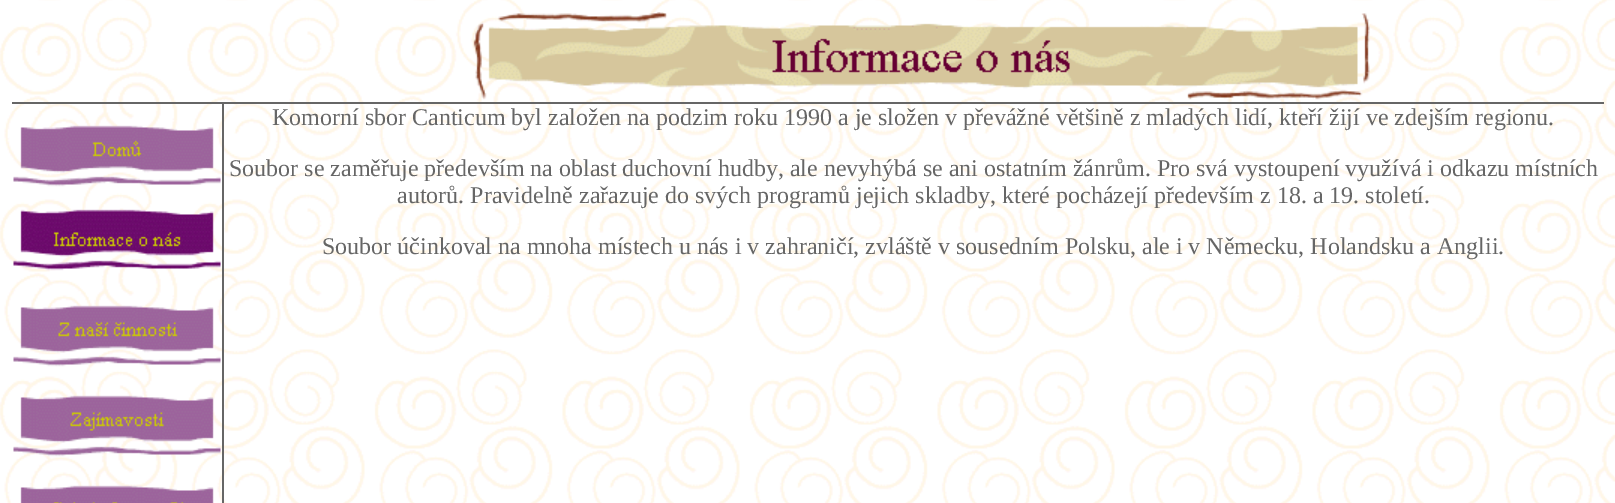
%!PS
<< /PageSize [1615 503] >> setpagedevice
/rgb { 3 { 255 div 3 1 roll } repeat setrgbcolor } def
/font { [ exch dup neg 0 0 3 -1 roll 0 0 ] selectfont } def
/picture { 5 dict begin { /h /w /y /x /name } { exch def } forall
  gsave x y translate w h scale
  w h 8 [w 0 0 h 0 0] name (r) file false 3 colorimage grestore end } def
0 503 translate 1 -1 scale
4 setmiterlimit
255 255 255 rgb
0 0 1615 503 rectfill
(img/1.rgb) 0 0 1615 503 picture
(img/2.rgb) 473 12 897 88 picture
102 102 102 rgb
12 102 1592 2 rectfill
222 104 2 399 rectfill
(img/3.rgb) 13 125 208 62 picture
(img/4.rgb) 13 209 208 62 picture
(img/5.rgb) 13 305 208 62 picture
(img/6.rgb) 13 395 208 62 picture
(img/7.rgb) 20 485 194 18 picture
/LiberationSerif-Regular 24 font
[
  [(Komorní sbor Canticum byl založen na podzim roku 1990 a je složen v převážné většině z mladých lidí, kteří žijí ve zdejším regionu.) 272 125]
  [(Soubor se zaměřuje především na oblast duchovní hudby, ale nevyhýbá se ani ostatním žánrům. Pro svá vystoupení využívá i odkazu místních) 229 176]
  [(autorů. Pravidelně zařazuje do svých programů jejich skladby, které pocházejí především z 18. a 19. století.) 397 203]
  [(Soubor účinkoval na mnoha místech u nás i v zahraničí, zvláště v sousedním Polsku, ale i v Německu, Holandsku a Anglii.) 322 254]
] { aload pop moveto show } forall
showpage
